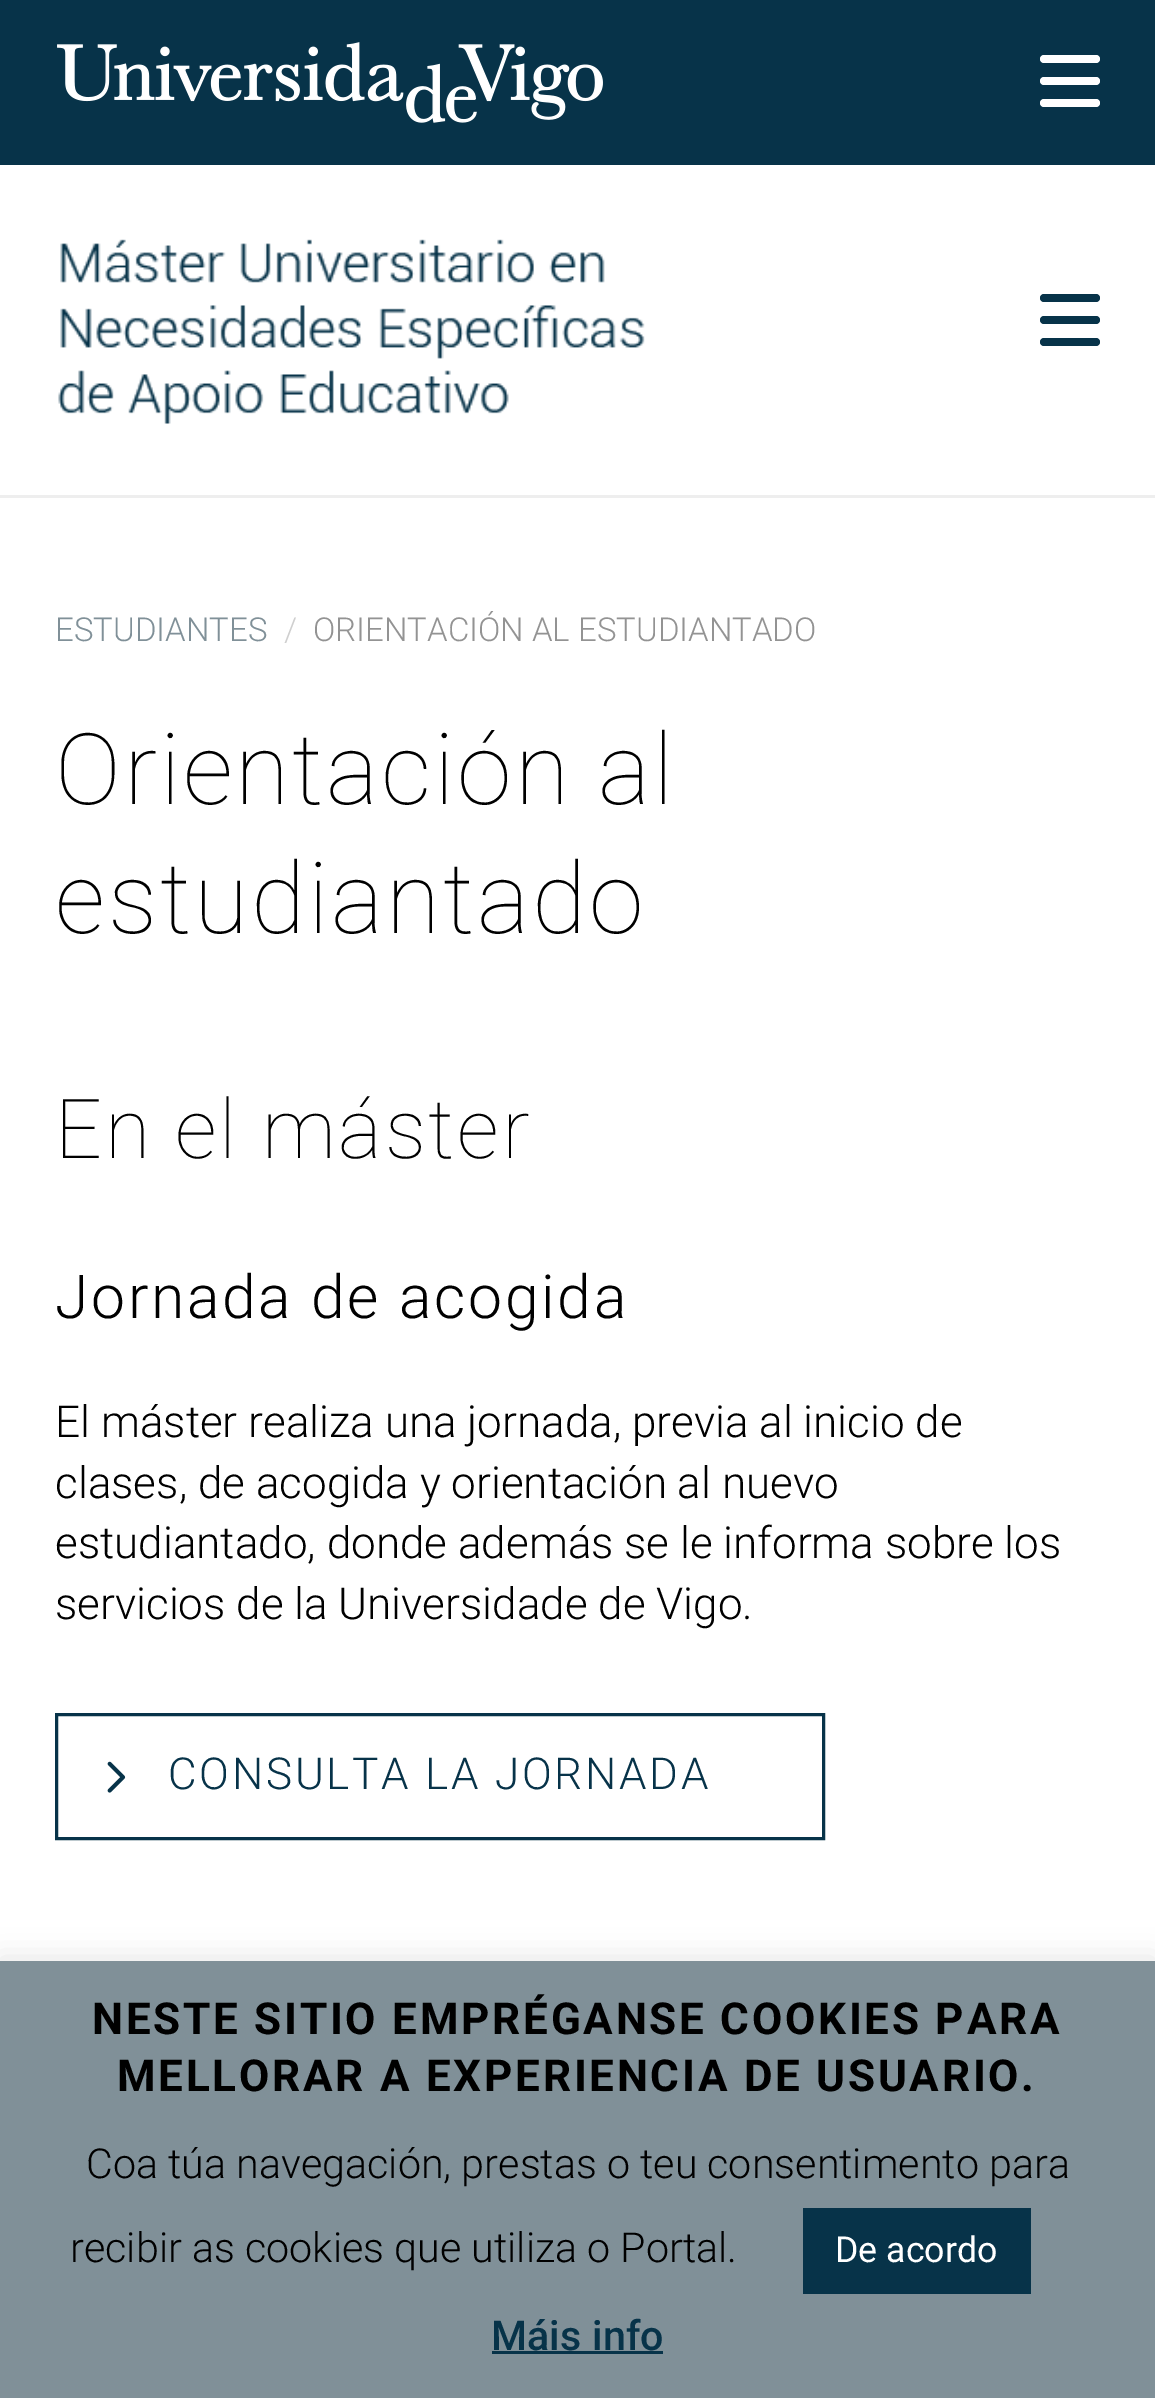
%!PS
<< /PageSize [1155 2398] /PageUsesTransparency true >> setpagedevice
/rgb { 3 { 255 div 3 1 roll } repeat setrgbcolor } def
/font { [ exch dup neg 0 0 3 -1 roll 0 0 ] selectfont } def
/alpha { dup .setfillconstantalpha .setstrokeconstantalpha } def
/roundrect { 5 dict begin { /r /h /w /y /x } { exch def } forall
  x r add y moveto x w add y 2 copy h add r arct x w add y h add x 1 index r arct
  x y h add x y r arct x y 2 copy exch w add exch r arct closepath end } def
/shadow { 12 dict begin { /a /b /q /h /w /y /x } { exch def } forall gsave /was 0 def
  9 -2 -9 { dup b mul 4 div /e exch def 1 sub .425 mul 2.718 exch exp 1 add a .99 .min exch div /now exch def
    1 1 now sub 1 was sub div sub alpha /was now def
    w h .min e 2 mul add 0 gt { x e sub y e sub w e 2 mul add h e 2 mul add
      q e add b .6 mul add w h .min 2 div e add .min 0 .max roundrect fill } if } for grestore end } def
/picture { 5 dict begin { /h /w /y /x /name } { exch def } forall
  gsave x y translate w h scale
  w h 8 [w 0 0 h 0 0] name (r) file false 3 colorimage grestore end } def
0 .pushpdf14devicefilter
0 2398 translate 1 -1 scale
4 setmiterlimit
255 255 255 rgb
0 0 1155 2398 rectfill
7 51 73 rgb
0 0 1155 165 rectfill
(img/1.rgb) 57 42 546 81 picture
255 255 255 rgb
1040 55 60 8 4 roundrect fill
1040 77 60 8 4 roundrect fill
1040 99 60 8 4 roundrect fill
238 238 238 rgb
0 495 1155 3 rectfill
(img/2.rgb) 58 239 587 185 picture
7 51 73 rgb
1040 294 60 8 4 roundrect fill
1040 316 60 8 4 roundrect fill
1040 338 60 8 4 roundrect fill
3 setlinewidth
56.5 1714.5 767 124 rectstroke
(img/3.rgb) 107 1761 19 32 picture
172 171 171 rgb
0 1958 1155 437 0 14 0.3 shadow
[
  [0 1961 1155 437 128 144 152]
  [803 2208 228 86 7 51 73]
  [492 2351 171 3 7 51 73]
] { aload pop rgb rectfill } forall
/Roboto-Light 33 font
128 144 152 rgb
55 641 moveto (ESTUDIANTES) show
207 207 207 rgb
284 641 moveto (/) show
147 147 147 rgb
313 641 moveto (ORIENTACIÓN AL ESTUDIANTADO) show
/Roboto-Thin 99 font
0 0 0 rgb
55 804 moveto 2.75 0 (Orientación al) ashow
55 933 moveto 2.75 0 (estudiantado) ashow
/Roboto-Thin 82.5 font
55 1158 moveto 2.75 0 (En el máster) ashow
/Roboto-Light 60.5 font
55 1318 moveto 2.75 0 (Jornada de acogida) ashow
/Roboto-Light 44 font
[
  [(El máster realiza una jornada, previa al inicio de) 55 1437]
  [(clases, de acogida y orientación al nuevo) 55 1498]
  [(estudiantado, donde además se le informa sobre los) 55 1558]
  [(servicios de la Universidade de Vigo.) 55 1619]
] { aload pop moveto show } forall
7 51 73 rgb
168 1789 moveto 2.75 0 (CONSULTA LA JORNADA) ashow
/Roboto-Bold 44 font
0 0 0 rgb
92 2034 moveto 2.75 0 (NESTE SITIO EMPRÉGANSE COOKIES PARA) ashow
117 2091 moveto 2.75 0 (MELLORAR A EXPERIENCIA DE USUARIO.) ashow
/Roboto-Light 41.25 font
86 2178 moveto (Coa túa navegación, prestas o teu consentimento para) show
70 2262 moveto (recibir as cookies que utiliza o Portal.) show
/Roboto-Regular 35.75 font
255 255 255 rgb
835 2262 moveto (De acordo) show
/Roboto-Medium 41.25 font
7 51 73 rgb
491 2350 moveto 1 0 32 (Máis info) widthshow
.poppdf14devicefilter showpage
